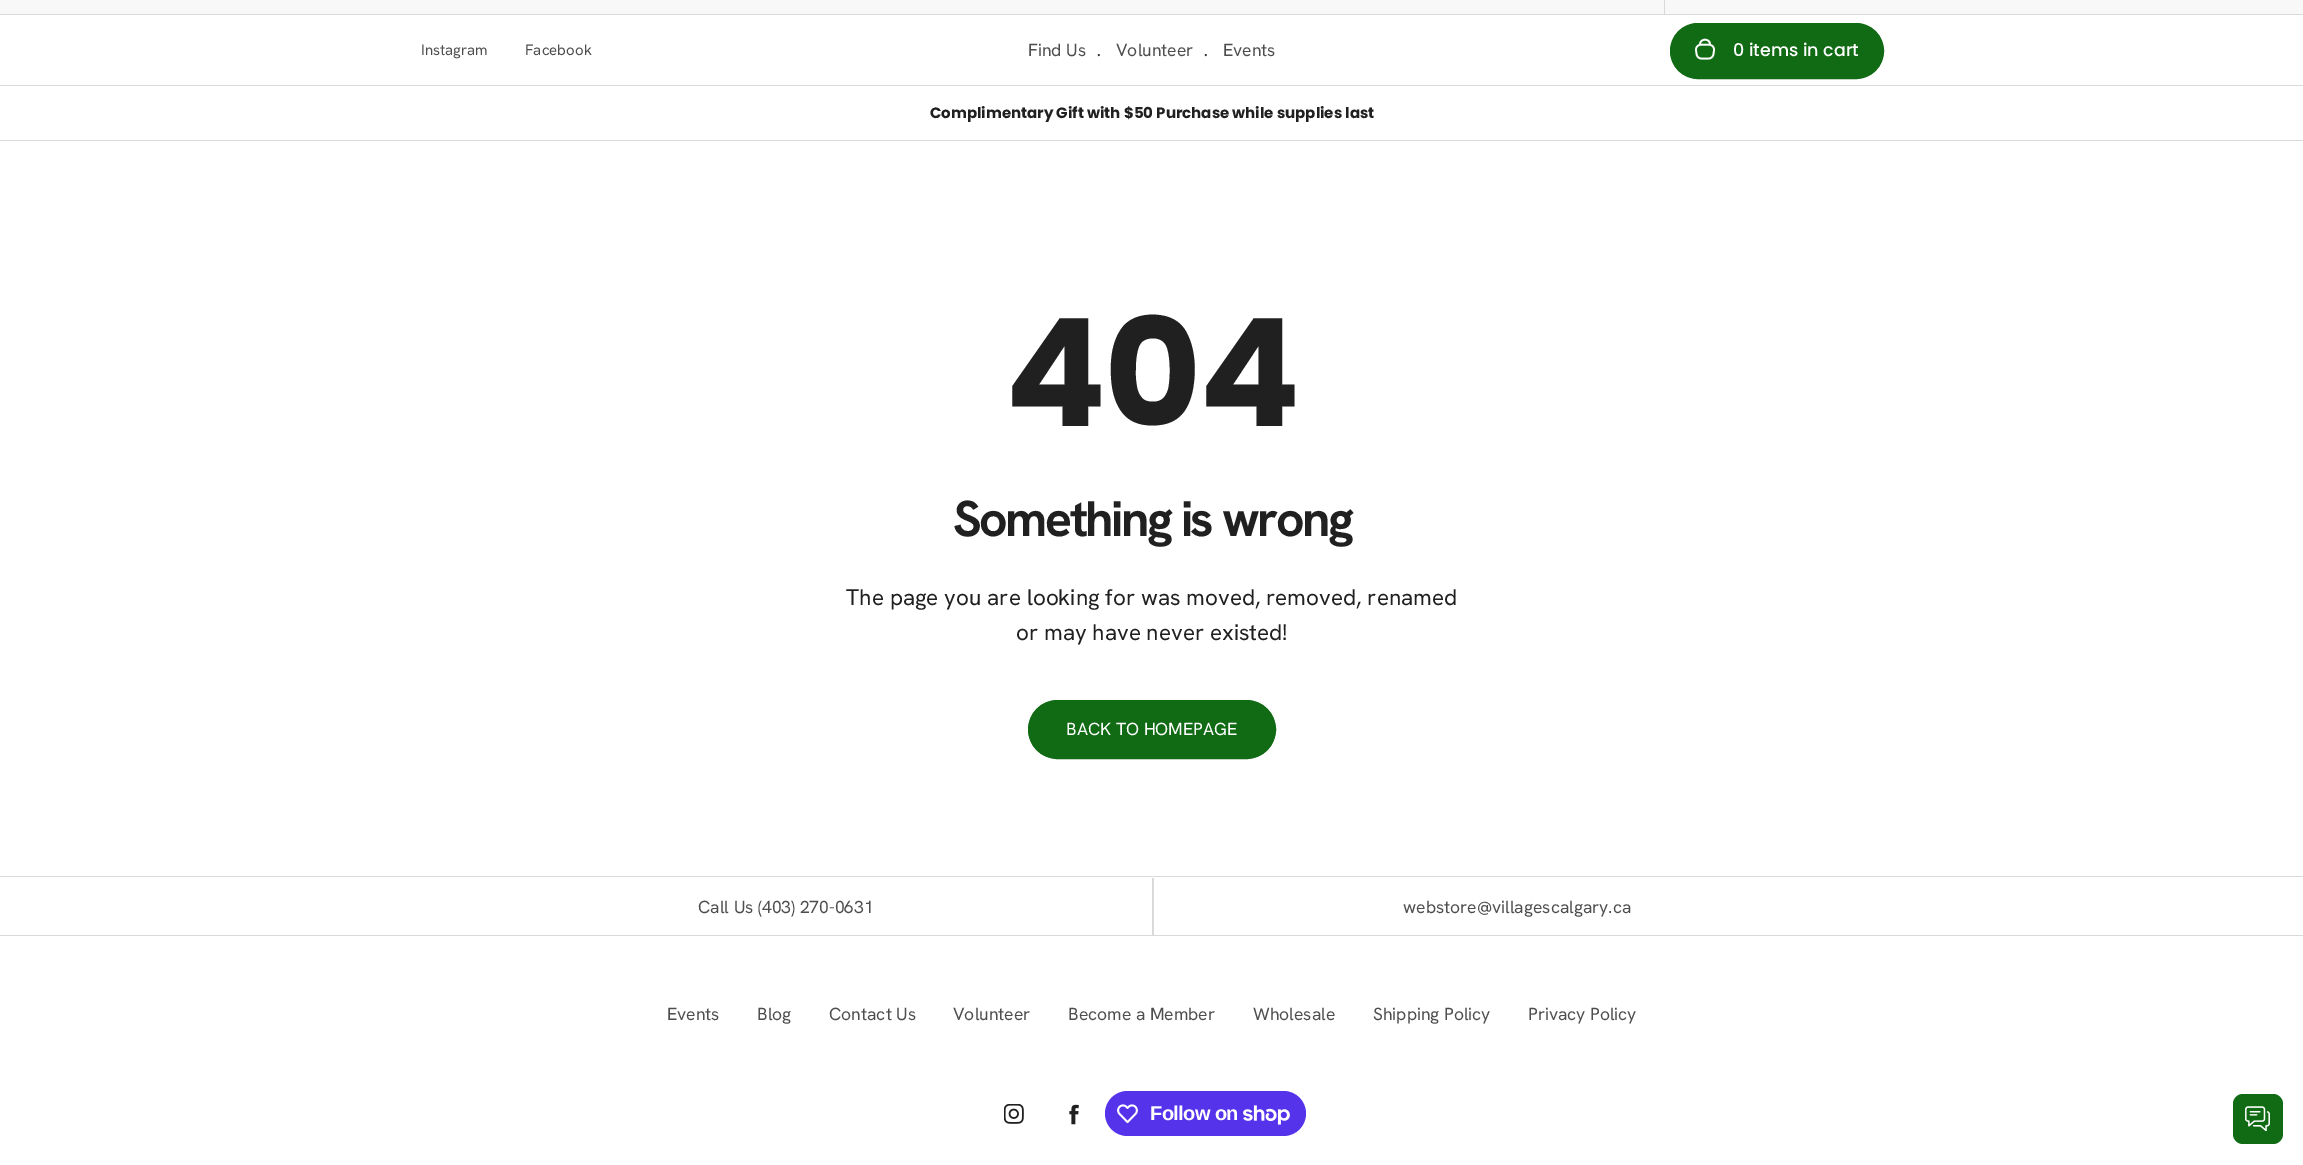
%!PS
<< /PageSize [2303 1165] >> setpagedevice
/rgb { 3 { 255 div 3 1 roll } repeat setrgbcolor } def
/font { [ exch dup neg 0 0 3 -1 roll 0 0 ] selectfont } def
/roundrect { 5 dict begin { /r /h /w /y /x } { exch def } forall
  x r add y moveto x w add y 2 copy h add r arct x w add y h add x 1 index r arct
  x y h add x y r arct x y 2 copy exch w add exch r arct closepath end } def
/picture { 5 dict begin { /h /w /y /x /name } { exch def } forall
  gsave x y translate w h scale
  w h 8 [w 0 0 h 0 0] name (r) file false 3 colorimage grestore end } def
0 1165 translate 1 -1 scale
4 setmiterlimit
255 255 255 rgb
0 0 2303 1165 rectfill
[
  [0 0 2303 14 248 248 248]
  [0 14 2303 1 217 217 217]
  [1664 0 1 14 217 217 217]
  [0 85 2303 1 217 217 217]
] { aload pop rgb rectfill } forall
17 106 20 rgb
1670.5 23.5 213 55 27.5 roundrect gsave fill grestore
stroke
(img/1.rgb) 1694 38 22 22 picture
217 217 217 rgb
0 140 2303 1 rectfill
17 106 20 rgb
1028.5 700.5 247 58 29 roundrect gsave fill grestore
stroke
[
  [0 876 2303 1 217 217 217]
  [0 935 2303 1 217 217 217]
  [1152 878 2 57 217 217 217]
] { aload pop rgb rectfill } forall
(img/2.rgb) 1004 1104 20 20 picture
(img/3.rgb) 1069 1104 10 21 picture
84 51 235 rgb
1105 1091 201 45 22.5 roundrect fill
(img/4.rgb) 1117 1104 21 20 picture
(img/5.rgb) 1243 1105 47 20 picture
17 106 20 rgb
2233 1094 50 50 10 roundrect fill
(img/6.rgb) 2245 1106 25 25 picture
/HankenGrotesk-Regular 15 font
78 78 78 rgb
421 55 moveto (Instagram) show
525 55 moveto (Facebook) show
/HankenGrotesk-Regular 17.5 font
1028 56 moveto (Find Us) show
/Poppins-Regular 17.5 font
32 32 32 rgb
1097 56 moveto (.) show
/HankenGrotesk-Regular 17.5 font
78 78 78 rgb
1116 56 moveto (Volunteer) show
/Poppins-Regular 17.5 font
32 32 32 rgb
1204 56 moveto (.) show
/HankenGrotesk-Regular 17.5 font
78 78 78 rgb
1223 56 moveto (Events) show
/Poppins-Medium 17.5 font
255 255 255 rgb
1733 56 moveto (0 items in cart) show
/Poppins-Bold 15 font
32 32 32 rgb
930 118 moveto (Complimentary Gift with $50 Purchase while supplies last) show
/Poppins-Bold 150 font
1005 426 moveto -2.5 0 (404) ashow
/HankenGrotesk-Bold 50 font
953 536 moveto -2.5 0 (Something is wrong) ashow
/HankenGrotesk-Regular 22.5 font
846 605 moveto (The page you are looking for was moved, removed, renamed) show
1016 640 moveto (or may have never existed!) show
/HankenGrotesk-Regular 17.5 font
255 255 255 rgb
1066 735 moveto (BACK TO HOMEPAGE) show
78 78 78 rgb
[
  [(Call Us \(403\) 270-0631) 698 913]
  [(webstore@villagescalgary.ca) 1403 913]
  [(Events) 667 1020]
  [(Blog) 757 1020]
  [(Contact Us) 829 1020]
  [(Volunteer) 953 1020]
  [(Become a Member) 1068 1020]
  [(Wholesale) 1253 1020]
  [(Shipping Policy) 1373 1020]
  [(Privacy Policy) 1528 1020]
] { aload pop moveto show } forall
/LiberationSans-Bold 20 font
255 255 255 rgb
1150 1120 moveto -0.6 0 (Follow on) ashow
showpage
